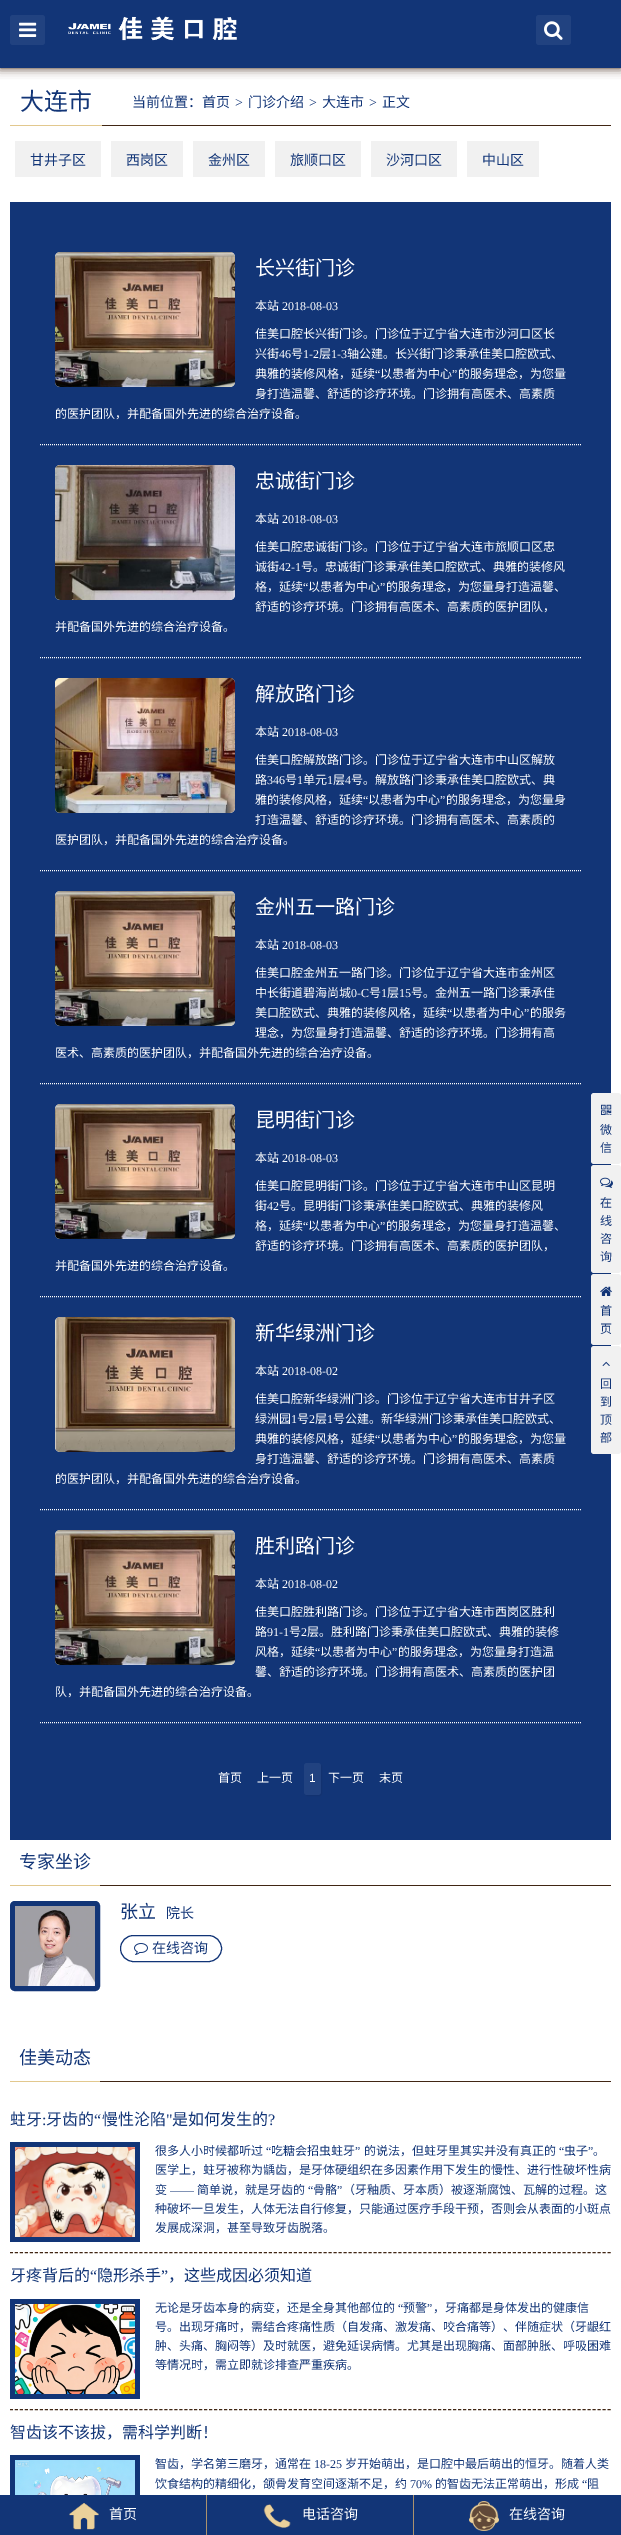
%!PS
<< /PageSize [621 2535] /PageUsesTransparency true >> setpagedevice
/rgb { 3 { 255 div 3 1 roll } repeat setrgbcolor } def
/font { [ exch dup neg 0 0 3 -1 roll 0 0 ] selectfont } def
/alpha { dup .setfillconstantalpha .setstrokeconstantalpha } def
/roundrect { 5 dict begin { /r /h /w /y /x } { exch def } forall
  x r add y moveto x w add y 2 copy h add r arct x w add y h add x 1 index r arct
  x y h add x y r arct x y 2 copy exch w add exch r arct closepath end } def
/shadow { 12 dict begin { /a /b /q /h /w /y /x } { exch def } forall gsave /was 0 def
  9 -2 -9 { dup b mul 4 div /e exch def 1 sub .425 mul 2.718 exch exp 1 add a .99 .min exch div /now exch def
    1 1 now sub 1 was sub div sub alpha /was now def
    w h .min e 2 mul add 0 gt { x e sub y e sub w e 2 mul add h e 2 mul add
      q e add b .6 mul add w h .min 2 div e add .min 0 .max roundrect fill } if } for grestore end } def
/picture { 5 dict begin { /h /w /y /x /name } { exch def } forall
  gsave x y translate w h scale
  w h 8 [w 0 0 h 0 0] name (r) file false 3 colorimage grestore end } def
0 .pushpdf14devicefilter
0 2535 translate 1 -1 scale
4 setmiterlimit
255 255 255 rgb
0 0 621 2535 rectfill
59 33 16 rgb
0 0 621 68 0 5 1 shadow
18 53 119 rgb
0 0 621 68 rectfill
33 66 128 rgb
10 15 35 30 3 roundrect fill
(img/1.rgb) 19 22 18 15 picture
(img/2.rgb) 68 16 169 25 picture
536 15 35 30 3 roundrect fill
(img/3.rgb) 544 21 19 19 picture
[
  [102 125 509 1 65 38 20]
  [10 125 92 1 226 200 142]
  [15 141 86 36 241 241 241]
  [111 141 72 36 241 241 241]
  [193 141 72 36 241 241 241]
  [275 141 86 36 241 241 241]
  [371 141 86 36 241 241 241]
  [467 141 72 36 241 241 241]
  [10 202 601 1638 18 53 119]
] { aload pop rgb rectfill } forall
255 255 255 rgb
[1 1] 0 setdash
40 444.5 moveto 581 444.5 lineto stroke
(img/4.rgb) 55 252 180 135 picture
40 657.5 moveto 581 657.5 lineto stroke
(img/5.rgb) 55 465 180 135 picture
40 870.5 moveto 581 870.5 lineto stroke
(img/6.rgb) 55 678 180 135 picture
40 1083.5 moveto 581 1083.5 lineto stroke
(img/7.rgb) 55 891 180 135 picture
40 1296.5 moveto 581 1296.5 lineto stroke
(img/8.rgb) 55 1104 180 135 picture
40 1509.5 moveto 581 1509.5 lineto stroke
(img/9.rgb) 55 1317 180 135 picture
40 1722.5 moveto 581 1722.5 lineto stroke
(img/8.rgb) 55 1530 180 135 picture
0 0 0 rgb
305 1764 17 32 3 1 0.1 shadow
33 66 128 rgb
304 1763 17 32 3 roundrect fill
65 38 20 rgb
100 1885 511 1 rectfill
226 200 142 rgb
10 1885 90 1 rectfill
18 53 119 rgb
5 setlinewidth
[] 0 setdash
12.5 1903.5 85 85 2.5 roundrect stroke
(img/10.rgb) 15 1906 80 80 picture
1 setlinewidth
120.5 1935.5 101 26 13 roundrect stroke
(img/11.rgb) 134 1943 14 12 picture
65 38 20 rgb
100 2081 511 1 rectfill
226 200 142 rgb
10 2081 90 1 rectfill
65 38 20 rgb
[3 1.98] 0 setdash
10 2252.5 moveto 611 2252.5 lineto stroke
18 53 119 rgb
10 2142 130 100 rectfill
(img/12.rgb) 15 2147 120 90 picture
65 38 20 rgb
10 2409.5 moveto 611 2409.5 lineto stroke
18 53 119 rgb
10 2299 130 100 rectfill
(img/13.rgb) 15 2304 120 90 picture
10 2455 130 40 rectfill
(img/14.rgb) 15 2460 120 35 picture
241 241 241 rgb
591 1093 30 71 3 roundrect fill
(img/15.rgb) 601 1104 11 11 picture
591 1165 30 108 3 roundrect fill
(img/16.rgb) 600 1177 13 11 picture
591 1274 30 71 3 roundrect fill
(img/17.rgb) 600 1286 12 10 picture
591 1346 30 108 3 roundrect fill
(img/18.rgb) 602 1361 8 5 picture
18 53 119 rgb
0 2495 621 40 rectfill
(img/19.rgb) 69 2503 30 27 picture
171 146 109 rgb
206 2495 1 40 rectfill
(img/20.rgb) 263 2504 28 24 picture
413 2495 1 40 rectfill
(img/21.rgb) 469 2501 30 30 picture
/NotoSansCJKSC-Regular 24 font
18 53 119 rgb
20 110 moveto (大连市) show
/NotoSansCJKSC-Regular 14 font
132 107 moveto (当前位置：首页) show
/LiberationSerif-Regular 14 font
235 107 moveto (>) show
/NotoSansCJKSC-Regular 14 font
248 107 moveto (门诊介绍) show
/LiberationSerif-Regular 14 font
309 107 moveto (>) show
/NotoSansCJKSC-Regular 14 font
322 107 moveto (大连市) show
/LiberationSerif-Regular 14 font
369 107 moveto (>) show
/NotoSansCJKSC-Regular 14 font
[
  [(正文) 382 107]
  [(甘井子区) 30 165]
  [(西岗区) 126 165]
  [(金州区) 208 165]
  [(旅顺口区) 290 165]
  [(沙河口区) 386 165]
  [(中山区) 482 165]
] { aload pop moveto show } forall
/NotoSansCJKSC-Regular 20 font
255 255 255 rgb
255 275 moveto (长兴街门诊) show
/NotoSansCJKSC-Regular 12 font
255 310 moveto (本站) show
/LiberationSerif-Regular 12 font
282 310 moveto (2018-08-03) show
/NotoSansCJKSC-Regular 12 font
255 338 moveto (佳美口腔长兴街门诊。门诊位于辽宁省大连市沙河口区长) show
255 358 moveto (兴街) show
/LiberationSerif-Regular 12 font
279 358 moveto (46) show
/NotoSansCJKSC-Regular 12 font
291 358 moveto (号) show
/LiberationSerif-Regular 12 font
303 358 moveto (1-2) show
/NotoSansCJKSC-Regular 12 font
319 358 moveto (层) show
/LiberationSerif-Regular 12 font
331 358 moveto (1-3) show
/NotoSansCJKSC-Regular 12 font
347 358 moveto (轴公建。长兴街门诊秉承佳美口腔欧式、) show
255 378 moveto (典雅的装修风格，延续) show
/LiberationSerif-Regular 12 font
375 378 moveto (“) show
/NotoSansCJKSC-Regular 12 font
380 378 moveto (以患者为中心) show
/LiberationSerif-Regular 12 font
452 378 moveto (”) show
/NotoSansCJKSC-Regular 12 font
[
  [(的服务理念，为您量) 458 378]
  [(身打造温馨、舒适的诊疗环境。门诊拥有高医术、高素质) 255 398]
  [(的医护团队，并配备国外先进的综合治疗设备。) 55 418]
] { aload pop moveto show } forall
/NotoSansCJKSC-Regular 20 font
255 488 moveto (忠诚街门诊) show
/NotoSansCJKSC-Regular 12 font
255 523 moveto (本站) show
/LiberationSerif-Regular 12 font
282 523 moveto (2018-08-03) show
/NotoSansCJKSC-Regular 12 font
255 551 moveto (佳美口腔忠诚街门诊。门诊位于辽宁省大连市旅顺口区忠) show
255 571 moveto (诚街) show
/LiberationSerif-Regular 12 font
279 571 moveto (42-1) show
/NotoSansCJKSC-Regular 12 font
301 571 moveto (号。忠诚街门诊秉承佳美口腔欧式、典雅的装修风) show
255 591 moveto (格，延续) show
/LiberationSerif-Regular 12 font
303 591 moveto (“) show
/NotoSansCJKSC-Regular 12 font
308 591 moveto (以患者为中心) show
/LiberationSerif-Regular 12 font
380 591 moveto (”) show
/NotoSansCJKSC-Regular 12 font
[
  [(的服务理念，为您量身打造温馨、) 386 591]
  [(舒适的诊疗环境。门诊拥有高医术、高素质的医护团队，) 255 611]
  [(并配备国外先进的综合治疗设备。) 55 631]
] { aload pop moveto show } forall
/NotoSansCJKSC-Regular 20 font
255 701 moveto (解放路门诊) show
/NotoSansCJKSC-Regular 12 font
255 736 moveto (本站) show
/LiberationSerif-Regular 12 font
282 736 moveto (2018-08-03) show
/NotoSansCJKSC-Regular 12 font
255 764 moveto (佳美口腔解放路门诊。门诊位于辽宁省大连市中山区解放) show
255 784 moveto (路) show
/LiberationSerif-Regular 12 font
267 784 moveto (346) show
/NotoSansCJKSC-Regular 12 font
285 784 moveto (号) show
/LiberationSerif-Regular 12 font
297 784 moveto (1) show
/NotoSansCJKSC-Regular 12 font
303 784 moveto (单元) show
/LiberationSerif-Regular 12 font
327 784 moveto (1) show
/NotoSansCJKSC-Regular 12 font
333 784 moveto (层) show
/LiberationSerif-Regular 12 font
345 784 moveto (4) show
/NotoSansCJKSC-Regular 12 font
351 784 moveto (号。解放路门诊秉承佳美口腔欧式、典) show
255 804 moveto (雅的装修风格，延续) show
/LiberationSerif-Regular 12 font
363 804 moveto (“) show
/NotoSansCJKSC-Regular 12 font
368 804 moveto (以患者为中心) show
/LiberationSerif-Regular 12 font
440 804 moveto (”) show
/NotoSansCJKSC-Regular 12 font
[
  [(的服务理念，为您量身) 446 804]
  [(打造温馨、舒适的诊疗环境。门诊拥有高医术、高素质的) 255 824]
  [(医护团队，并配备国外先进的综合治疗设备。) 55 844]
] { aload pop moveto show } forall
/NotoSansCJKSC-Regular 20 font
255 914 moveto (金州五一路门诊) show
/NotoSansCJKSC-Regular 12 font
255 949 moveto (本站) show
/LiberationSerif-Regular 12 font
282 949 moveto (2018-08-03) show
/NotoSansCJKSC-Regular 12 font
255 977 moveto (佳美口腔金州五一路门诊。门诊位于辽宁省大连市金州区) show
255 997 moveto (中长街道碧海尚城) show
/LiberationSerif-Regular 12 font
351 997 moveto (0-C) show
/NotoSansCJKSC-Regular 12 font
369 997 moveto (号) show
/LiberationSerif-Regular 12 font
381 997 moveto (1) show
/NotoSansCJKSC-Regular 12 font
387 997 moveto (层) show
/LiberationSerif-Regular 12 font
399 997 moveto (15) show
/NotoSansCJKSC-Regular 12 font
411 997 moveto (号。金州五一路门诊秉承佳) show
255 1017 moveto (美口腔欧式、典雅的装修风格，延续) show
/LiberationSerif-Regular 12 font
447 1017 moveto (“) show
/NotoSansCJKSC-Regular 12 font
452 1017 moveto (以患者为中心) show
/LiberationSerif-Regular 12 font
524 1017 moveto (”) show
/NotoSansCJKSC-Regular 12 font
[
  [(的服务) 530 1017]
  [(理念，为您量身打造温馨、舒适的诊疗环境。门诊拥有高) 255 1037]
  [(医术、高素质的医护团队，并配备国外先进的综合治疗设备。) 55 1057]
] { aload pop moveto show } forall
/NotoSansCJKSC-Regular 20 font
255 1127 moveto (昆明街门诊) show
/NotoSansCJKSC-Regular 12 font
255 1162 moveto (本站) show
/LiberationSerif-Regular 12 font
282 1162 moveto (2018-08-03) show
/NotoSansCJKSC-Regular 12 font
255 1190 moveto (佳美口腔昆明街门诊。门诊位于辽宁省大连市中山区昆明) show
255 1210 moveto (街) show
/LiberationSerif-Regular 12 font
267 1210 moveto (42) show
/NotoSansCJKSC-Regular 12 font
279 1210 moveto (号。昆明街门诊秉承佳美口腔欧式、典雅的装修风) show
255 1230 moveto (格，延续) show
/LiberationSerif-Regular 12 font
303 1230 moveto (“) show
/NotoSansCJKSC-Regular 12 font
308 1230 moveto (以患者为中心) show
/LiberationSerif-Regular 12 font
380 1230 moveto (”) show
/NotoSansCJKSC-Regular 12 font
[
  [(的服务理念，为您量身打造温馨、) 386 1230]
  [(舒适的诊疗环境。门诊拥有高医术、高素质的医护团队，) 255 1250]
  [(并配备国外先进的综合治疗设备。) 55 1270]
] { aload pop moveto show } forall
/NotoSansCJKSC-Regular 20 font
255 1340 moveto (新华绿洲门诊) show
/NotoSansCJKSC-Regular 12 font
255 1375 moveto (本站) show
/LiberationSerif-Regular 12 font
282 1375 moveto (2018-08-02) show
/NotoSansCJKSC-Regular 12 font
255 1403 moveto (佳美口腔新华绿洲门诊。门诊位于辽宁省大连市甘井子区) show
255 1423 moveto (绿洲园) show
/LiberationSerif-Regular 12 font
291 1423 moveto (1) show
/NotoSansCJKSC-Regular 12 font
297 1423 moveto (号) show
/LiberationSerif-Regular 12 font
309 1423 moveto (2) show
/NotoSansCJKSC-Regular 12 font
315 1423 moveto (层) show
/LiberationSerif-Regular 12 font
327 1423 moveto (1) show
/NotoSansCJKSC-Regular 12 font
333 1423 moveto (号公建。新华绿洲门诊秉承佳美口腔欧式、) show
255 1443 moveto (典雅的装修风格，延续) show
/LiberationSerif-Regular 12 font
375 1443 moveto (“) show
/NotoSansCJKSC-Regular 12 font
380 1443 moveto (以患者为中心) show
/LiberationSerif-Regular 12 font
452 1443 moveto (”) show
/NotoSansCJKSC-Regular 12 font
[
  [(的服务理念，为您量) 458 1443]
  [(身打造温馨、舒适的诊疗环境。门诊拥有高医术、高素质) 255 1463]
  [(的医护团队，并配备国外先进的综合治疗设备。) 55 1483]
] { aload pop moveto show } forall
/NotoSansCJKSC-Regular 20 font
255 1553 moveto (胜利路门诊) show
/NotoSansCJKSC-Regular 12 font
255 1588 moveto (本站) show
/LiberationSerif-Regular 12 font
282 1588 moveto (2018-08-02) show
/NotoSansCJKSC-Regular 12 font
255 1616 moveto (佳美口腔胜利路门诊。门诊位于辽宁省大连市西岗区胜利) show
255 1636 moveto (路) show
/LiberationSerif-Regular 12 font
267 1636 moveto (91-1) show
/NotoSansCJKSC-Regular 12 font
289 1636 moveto (号) show
/LiberationSerif-Regular 12 font
301 1636 moveto (2) show
/NotoSansCJKSC-Regular 12 font
307 1636 moveto (层。胜利路门诊秉承佳美口腔欧式、典雅的装修) show
255 1656 moveto (风格，延续) show
/LiberationSerif-Regular 12 font
315 1656 moveto (“) show
/NotoSansCJKSC-Regular 12 font
320 1656 moveto (以患者为中心) show
/LiberationSerif-Regular 12 font
392 1656 moveto (”) show
/NotoSansCJKSC-Regular 12 font
[
  [(的服务理念，为您量身打造温) 398 1656]
  [(馨、舒适的诊疗环境。门诊拥有高医术、高素质的医护团) 255 1676]
  [(队，并配备国外先进的综合治疗设备。) 55 1696]
  [(首页) 218 1782]
  [(上一页) 257 1782]
] { aload pop moveto show } forall
/LiberationSans-Regular 12 font
309 1782 moveto (1) show
/NotoSansCJKSC-Regular 12 font
328 1782 moveto (下一页) show
379 1782 moveto (末页) show
/NotoSansCJKSC-Regular 18 font
18 53 119 rgb
19 1868 moveto (专家坐诊) show
120 1918 moveto (张立) show
/NotoSansCJKSC-Regular 14 font
166 1918 moveto (院长) show
152 1953 moveto (在线咨询) show
/NotoSansCJKSC-Regular 18 font
19 2064 moveto (佳美动态) show
/NotoSansCJKSC-Regular 16 font
10 2125 moveto (蛀牙) show
/LiberationSerif-Regular 16 font
42 2125 moveto (:) show
/NotoSansCJKSC-Regular 16 font
46 2125 moveto (牙齿的) show
/LiberationSerif-Regular 16 font
94 2125 moveto (“) show
/NotoSansCJKSC-Regular 16 font
102 2125 moveto (慢性沦陷) show
/LiberationSerif-Regular 16 font
166 2125 moveto (") show
/NotoSansCJKSC-Regular 16 font
172 2125 moveto (是如何发生的) show
/LiberationSerif-Regular 16 font
268 2125 moveto (?) show
/NotoSansCJKSC-Regular 12 font
155 2155 moveto (很多人小时候都听过) show
/LiberationSerif-Regular 12 font
266 2155 moveto (“) show
/NotoSansCJKSC-Regular 12 font
271 2155 moveto (吃糖会招虫蛀牙) show
/LiberationSerif-Regular 12 font
355 2155 moveto (”) show
/NotoSansCJKSC-Regular 12 font
364 2155 moveto (的说法，但蛀牙里其实并没有真正的) show
/LiberationSerif-Regular 12 font
559 2155 moveto (“) show
/NotoSansCJKSC-Regular 12 font
564 2155 moveto (虫子) show
/LiberationSerif-Regular 12 font
588 2155 moveto (”) show
/NotoSansCJKSC-Regular 12 font
[
  [(。) 593 2155]
  [(医学上，蛀牙被称为龋齿，是牙体硬组织在多因素作用下发生的慢性、进行性破坏性病) 155 2174]
  [(变) 155 2194]
  [(简单说，就是牙齿的) 197 2194]
] { aload pop moveto show } forall
/LiberationSerif-Regular 12 font
308 2194 moveto (“) show
/NotoSansCJKSC-Regular 12 font
313 2194 moveto (骨骼) show
/LiberationSerif-Regular 12 font
337 2194 moveto (”) show
/NotoSansCJKSC-Regular 12 font
343 2194 moveto (（牙釉质、牙本质）被逐渐腐蚀、瓦解的过程。这) show
/LiberationSerif-Regular 12 font
170 2194 moveto (——) show
/NotoSansCJKSC-Regular 12 font
155 2213 moveto (种破坏一旦发生，人体无法自行修复，只能通过医疗手段干预，否则会从表面的小斑点) show
155 2232 moveto (发展成深洞，甚至导致牙齿脱落。) show
/NotoSansCJKSC-Regular 16 font
10 2281 moveto (牙疼背后的) show
/LiberationSerif-Regular 16 font
90 2281 moveto (“) show
/NotoSansCJKSC-Regular 16 font
97 2281 moveto (隐形杀手) show
/LiberationSerif-Regular 16 font
161 2281 moveto (”) show
/NotoSansCJKSC-Regular 16 font
168 2281 moveto (，这些成因必须知道) show
/NotoSansCJKSC-Regular 12 font
155 2312 moveto (无论是牙齿本身的病变，还是全身其他部位的) show
/LiberationSerif-Regular 12 font
398 2312 moveto (“) show
/NotoSansCJKSC-Regular 12 font
403 2312 moveto (预警) show
/LiberationSerif-Regular 12 font
427 2312 moveto (”) show
/NotoSansCJKSC-Regular 12 font
[
  [(，牙痛都是身体发出的健康信) 433 2312]
  [(号。出现牙痛时，需结合疼痛性质（自发痛、激发痛、咬合痛等）、伴随症状（牙龈红) 155 2331]
  [(肿、头痛、胸闷等）及时就医，避免延误病情。尤其是出现胸痛、面部肿胀、呼吸困难) 155 2350]
  [(等情况时，需立即就诊排查严重疾病。) 155 2369]
] { aload pop moveto show } forall
/NotoSansCJKSC-Regular 16 font
10 2438 moveto (智齿该不该拔，需科学判断！) show
/NotoSansCJKSC-Regular 12 font
155 2468 moveto (智齿，学名第三磨牙，通常在) show
/LiberationSerif-Regular 12 font
314 2468 moveto (18-25) show
/NotoSansCJKSC-Regular 12 font
345 2468 moveto (岁开始萌出，是口腔中最后萌出的恒牙。随着人类) show
155 2488 moveto (饮食结构的精细化，颌骨发育空间逐渐不足，约) show
/LiberationSerif-Regular 12 font
410 2488 moveto (70%) show
/NotoSansCJKSC-Regular 12 font
435 2488 moveto (的智齿无法正常萌出，形成) show
/LiberationSerif-Regular 12 font
582 2488 moveto (“) show
/NotoSansCJKSC-Regular 12 font
[
  [(阻) 587 2488]
  [(微) 600 1134]
  [(信) 600 1152]
  [(在) 600 1207]
  [(线) 600 1225]
  [(咨) 600 1243]
  [(询) 600 1261]
  [(首) 600 1315]
  [(页) 600 1333]
  [(回) 600 1388]
  [(到) 600 1406]
  [(顶) 600 1424]
  [(部) 600 1442]
] { aload pop moveto show } forall
/NotoSansCJKSC-Regular 14 font
255 255 255 rgb
[
  [(首页) 109 2519]
  [(电话咨询) 302 2519]
  [(在线咨询) 509 2519]
] { aload pop moveto show } forall
.poppdf14devicefilter showpage
